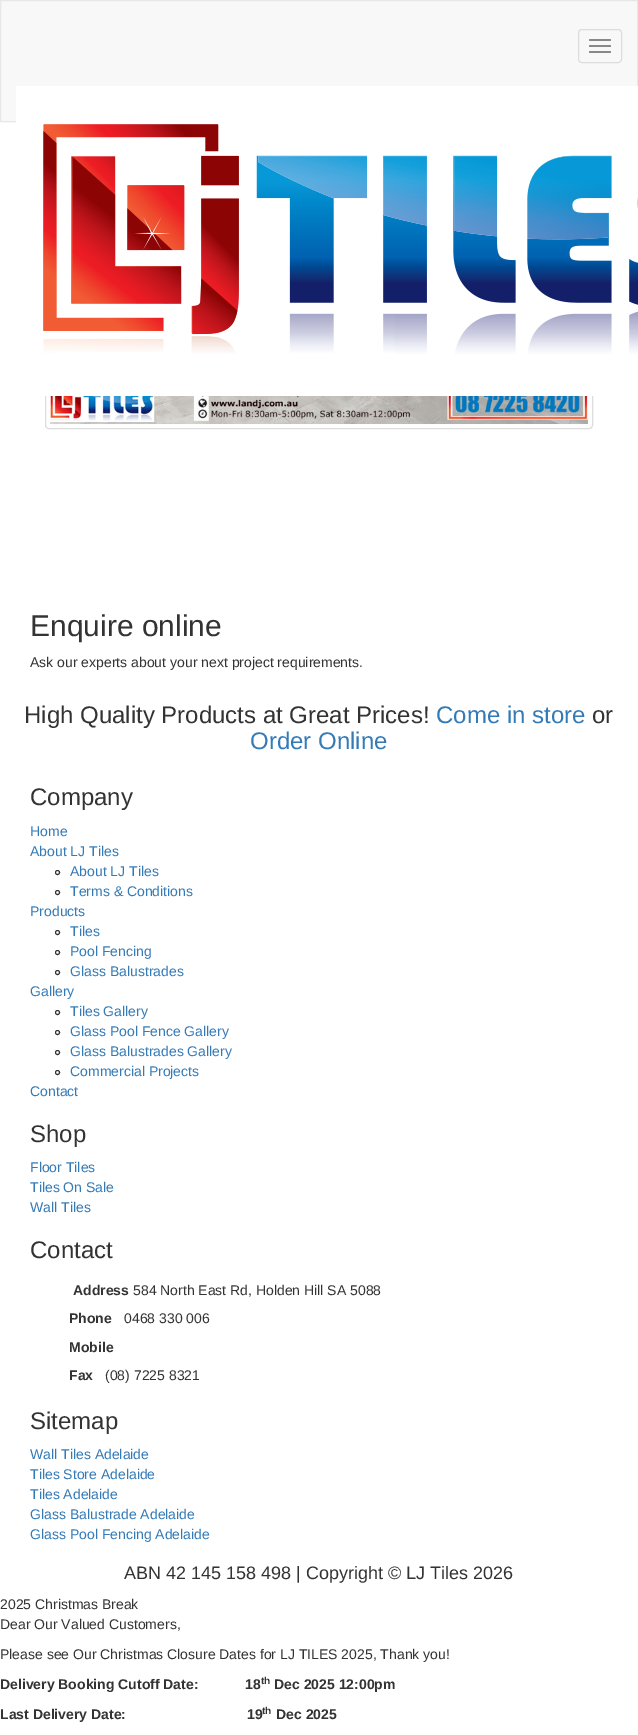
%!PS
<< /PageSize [638 1735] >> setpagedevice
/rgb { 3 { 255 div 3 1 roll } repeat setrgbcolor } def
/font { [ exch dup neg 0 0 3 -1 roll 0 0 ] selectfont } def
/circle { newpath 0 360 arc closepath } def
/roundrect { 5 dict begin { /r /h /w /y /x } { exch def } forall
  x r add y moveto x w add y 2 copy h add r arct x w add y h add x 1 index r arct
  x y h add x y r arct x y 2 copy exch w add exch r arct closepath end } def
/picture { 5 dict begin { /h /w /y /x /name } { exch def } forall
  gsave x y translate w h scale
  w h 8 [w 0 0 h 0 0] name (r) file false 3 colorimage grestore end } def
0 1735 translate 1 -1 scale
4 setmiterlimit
255 255 255 rgb
0 0 638 1735 rectfill
221 221 221 rgb
45.5 59.5 547 369 3.5 roundrect stroke
248 248 248 rgb
0.5 0.5 moveto 637.5 0.5 lineto 637.5 121.5 lineto 0.5 121.5 lineto closepath gsave fill grestore
231 231 231 rgb
stroke
221 221 221 rgb
578.5 29.5 43 33 3.5 roundrect stroke
136 136 136 rgb
589 39 22 2 1 roundrect fill
589 45 22 2 1 roundrect fill
589 51 22 2 1 roundrect fill
(img/1.rgb) 16 86 622 310 picture
(img/2.rgb) 50 396 538 28 picture
51 51 51 rgb
57.5 872.5 2 circle stroke
57.5 892.5 2 circle stroke
57.5 932.5 2 circle stroke
57.5 952.5 2 circle stroke
57.5 972.5 2 circle stroke
57.5 1012.5 2 circle stroke
57.5 1032.5 2 circle stroke
57.5 1052.5 2 circle stroke
57.5 1072.5 2 circle stroke
/LiberationSans-Regular 30 font
30 636 moveto (Enquire online) show
/LiberationSans-Regular 14 font
30 667 moveto (Ask our experts about your next project requirements.) show
/LiberationSans-Regular 24 font
24 723 moveto (High Quality Products at Great Prices!) show
51 122 183 rgb
436 723 moveto (Come in store) show
51 51 51 rgb
592 723 moveto (or) show
51 122 183 rgb
250 749 moveto (Order Online) show
51 51 51 rgb
30 805 moveto (Company) show
/LiberationSans-Regular 14 font
51 122 183 rgb
[
  [(Home) 30 836]
  [(About LJ Tiles) 30 856]
  [(About LJ Tiles) 70 876]
  [(Terms & Conditions) 70 896]
  [(Products) 30 916]
  [(Tiles) 70 936]
  [(Pool Fencing) 70 956]
  [(Glass Balustrades) 70 976]
  [(Gallery) 30 996]
  [(Tiles Gallery) 70 1016]
  [(Glass Pool Fence Gallery) 70 1036]
  [(Glass Balustrades Gallery) 70 1056]
  [(Commercial Projects) 70 1076]
  [(Contact) 30 1096]
] { aload pop moveto show } forall
/LiberationSans-Regular 24 font
51 51 51 rgb
30 1142 moveto (Shop) show
/LiberationSans-Regular 14 font
51 122 183 rgb
[
  [(Floor Tiles) 30 1172]
  [(Tiles On Sale) 30 1192]
  [(Wall Tiles) 30 1212]
] { aload pop moveto show } forall
/LiberationSans-Regular 24 font
51 51 51 rgb
30 1258 moveto (Contact) show
/LiberationSans-Bold 14 font
73 1295 moveto (Address) show
/LiberationSans-Regular 14 font
133 1295 moveto (584 North East Rd, Holden Hill SA 5088) show
/LiberationSans-Bold 14 font
69 1323 moveto (Phone) show
/LiberationSans-Regular 14 font
124 1323 moveto (0468 330 006) show
/LiberationSans-Bold 14 font
69 1352 moveto (Mobile) show
69 1380 moveto (Fax) show
/LiberationSans-Regular 14 font
105 1380 moveto (\(08\) 7225 8321) show
/LiberationSans-Regular 24 font
30 1429 moveto (Sitemap) show
/LiberationSans-Regular 14 font
51 122 183 rgb
[
  [(Wall Tiles Adelaide) 30 1459]
  [(Tiles Store Adelaide) 30 1479]
  [(Tiles Adelaide) 30 1499]
  [(Glass Balustrade Adelaide) 30 1519]
  [(Glass Pool Fencing Adelaide) 30 1539]
] { aload pop moveto show } forall
/LiberationSans-Regular 18 font
51 51 51 rgb
124 1579 moveto (ABN 42 145 158 498 | Copyright © LJ Tiles 2026) show
/LiberationSans-Regular 14 font
[
  [(2025 Christmas Break) 0 1609]
  [(Dear Our Valued Customers,) 0 1629]
  [(Please see Our Christmas Closure Dates for LJ TILES 2025, Thank you!) 0 1659]
] { aload pop moveto show } forall
/LiberationSans-Bold 14 font
0 1689 moveto (Delivery Booking Cutoff Date:            18) show
/LiberationSans-Bold 10 font
261 1684 moveto (th) show
/LiberationSans-Bold 14 font
[
  [(Dec 2025 12:00pm) 274 1689]
  [(Last Delivery Date:) 0 1719]
  [(19) 247 1719]
] { aload pop moveto show } forall
/LiberationSans-Bold 10 font
262 1714 moveto (th) show
/LiberationSans-Bold 14 font
276 1719 moveto (Dec 2025) show
showpage
